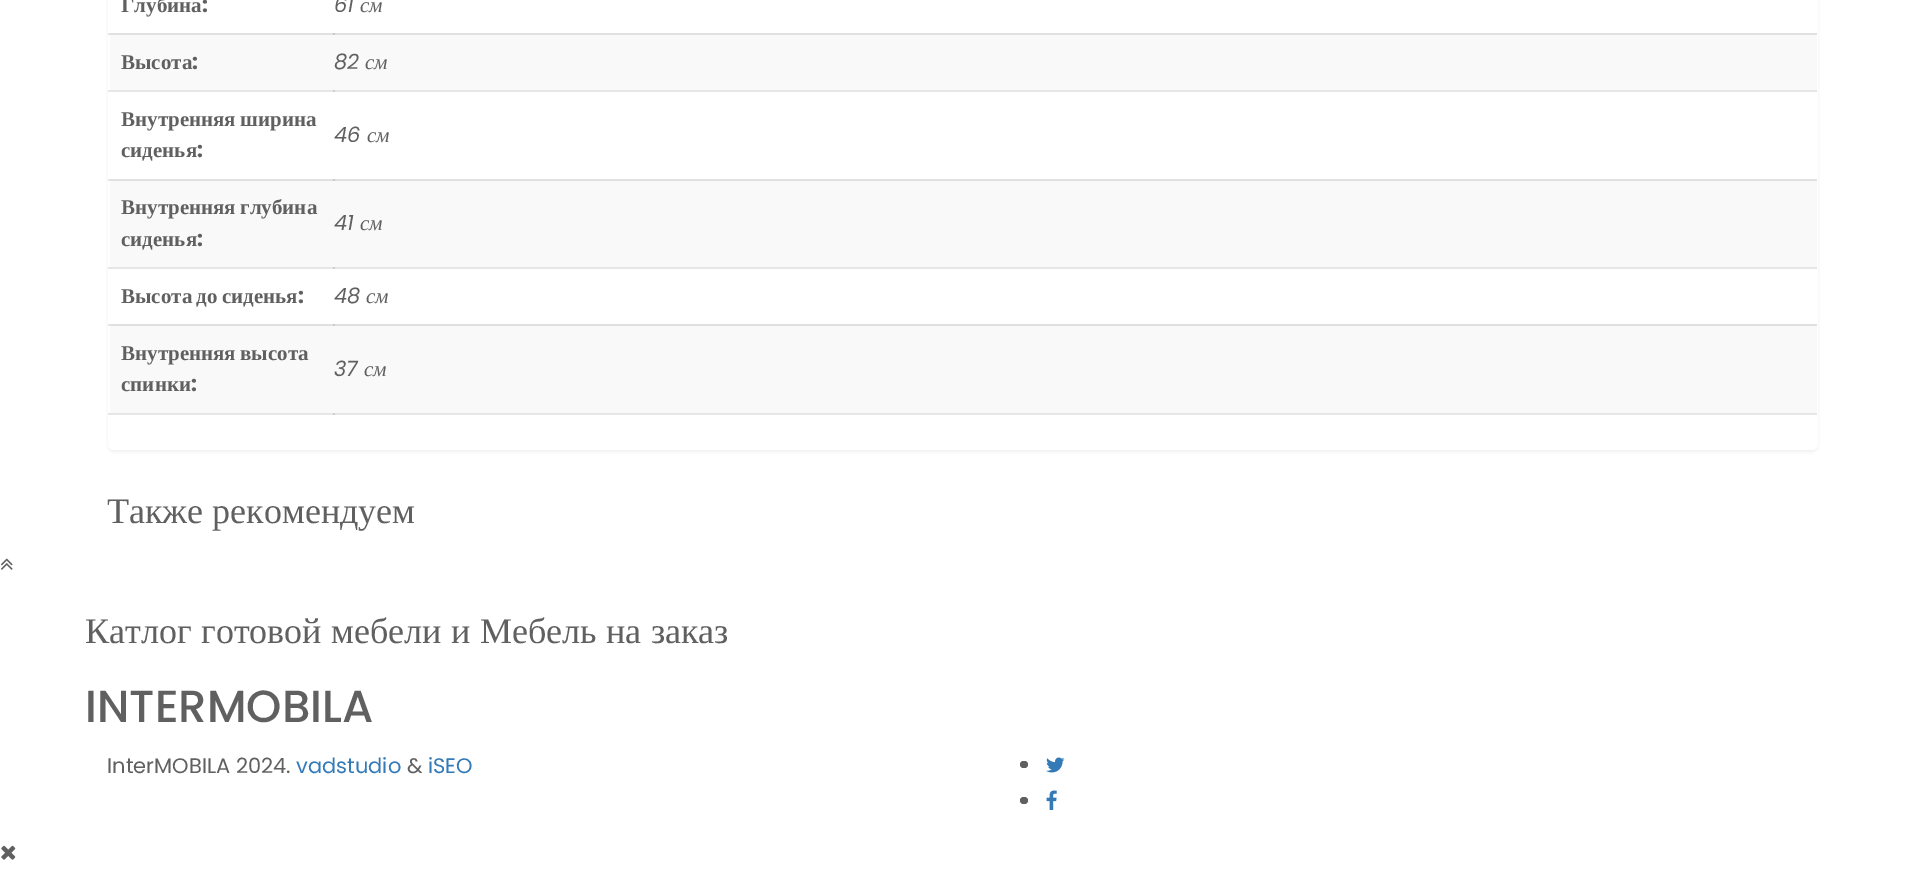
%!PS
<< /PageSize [1924 869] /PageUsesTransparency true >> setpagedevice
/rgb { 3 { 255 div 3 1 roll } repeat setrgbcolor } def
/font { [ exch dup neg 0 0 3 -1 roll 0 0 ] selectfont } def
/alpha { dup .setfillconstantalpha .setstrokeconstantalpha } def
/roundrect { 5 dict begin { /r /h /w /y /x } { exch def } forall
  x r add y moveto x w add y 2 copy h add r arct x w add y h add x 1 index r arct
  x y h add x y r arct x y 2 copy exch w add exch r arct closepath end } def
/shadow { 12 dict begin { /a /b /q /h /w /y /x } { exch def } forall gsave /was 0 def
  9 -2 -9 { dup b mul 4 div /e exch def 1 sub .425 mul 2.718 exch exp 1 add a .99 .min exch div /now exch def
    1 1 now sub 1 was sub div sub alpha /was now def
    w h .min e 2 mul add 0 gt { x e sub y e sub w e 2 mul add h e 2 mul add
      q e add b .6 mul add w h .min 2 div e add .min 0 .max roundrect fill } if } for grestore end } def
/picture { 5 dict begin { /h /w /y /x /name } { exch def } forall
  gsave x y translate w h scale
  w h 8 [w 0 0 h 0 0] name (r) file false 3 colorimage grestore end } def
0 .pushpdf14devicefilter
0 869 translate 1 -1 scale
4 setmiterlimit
255 255 255 rgb
0 0 1924 869 rectfill
0 0 0 rgb
108 -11 1710 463 6 1.5 0.05 shadow
255 255 255 rgb
108 -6 1710 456 6 roundrect fill
[
  [108 33 2 2 230 230 230]
  [108 90 1709 2 230 230 230]
  [108 179 2 2 230 230 230]
  [108 267 1709 2 230 230 230]
  [108 324 2 2 230 230 230]
  [108 413 1709 2 230 230 230]
  [110 33 1707 2 224 224 224]
  [333 33 2 2 202 202 202]
  [110 35 1707 55 249 249 249]
  [333 90 2 2 207 207 207]
  [110 179 1707 2 224 224 224]
  [333 179 2 2 202 202 202]
  [110 181 1707 86 249 249 249]
  [333 267 2 2 207 207 207]
  [110 324 1707 2 224 224 224]
  [333 324 2 2 202 202 202]
  [110 326 1707 87 249 249 249]
  [333 413 2 2 207 207 207]
] { aload pop rgb rectfill } forall
(img/1.rgb) 1 558 12 12 picture
96 96 96 rgb
1020 761 8 7 3.5 roundrect fill
(img/2.rgb) 1046 757 19 16 picture
1020 797 8 7 3.5 roundrect fill
(img/3.rgb) 1046 790 11 20 picture
(img/4.rgb) 1 845 15 15 picture
/LiberationSerif-Bold 21 font
121 12 moveto (Глубина) show
/Poppins-Bold 21 font
202 12 moveto (:) show
/Poppins-Italic 21 font
334 12 moveto (61) show
/LiberationSerif-Italic 21 font
360 12 moveto (см) show
/LiberationSerif-Bold 21 font
121 69 moveto (Высота) show
/Poppins-Bold 21 font
192 69 moveto (:) show
/Poppins-Italic 21 font
334 69 moveto (82) show
/LiberationSerif-Italic 21 font
365 69 moveto (см) show
/LiberationSerif-Bold 21 font
121 126 moveto -1 0 32 (Внутренняя ширина) widthshow
121 157 moveto (сиденья) show
/Poppins-Bold 21 font
197 157 moveto (:) show
/Poppins-Italic 21 font
334 142 moveto (46) show
/LiberationSerif-Italic 21 font
367 142 moveto (см) show
/LiberationSerif-Bold 21 font
121 214 moveto -1 0 32 (Внутренняя глубина) widthshow
121 246 moveto (сиденья) show
/Poppins-Bold 21 font
197 246 moveto (:) show
/Poppins-Italic 21 font
334 230 moveto (41) show
/LiberationSerif-Italic 21 font
360 230 moveto (см) show
/LiberationSerif-Bold 21 font
121 303 moveto -1 0 32 (Высота до сиденья) widthshow
/Poppins-Bold 21 font
298 303 moveto (:) show
/Poppins-Italic 21 font
334 303 moveto (48) show
/LiberationSerif-Italic 21 font
366 303 moveto (см) show
/LiberationSerif-Bold 21 font
121 360 moveto -1 0 32 (Внутренняя высота) widthshow
121 391 moveto (спинки) show
/Poppins-Bold 21 font
191 391 moveto (:) show
/Poppins-Italic 21 font
334 376 moveto (37) show
/LiberationSerif-Italic 21 font
364 376 moveto (см) show
/LiberationSerif-Regular 36 font
107 523 moveto (Также рекомендуем) show
85 643 moveto 0.5 0 32 (Катлог готовой мебели и Мебель на заказ) widthshow
/Poppins-Medium 45 font
85 722 moveto (INTERMOBILA) show
/Poppins-Regular 21 font
107 773 moveto (InterMOBILA 2024.) show
51 122 183 rgb
296 773 moveto (vadstudio) show
96 96 96 rgb
407 773 moveto (&) show
51 122 183 rgb
428 773 moveto (iSEO) show
.poppdf14devicefilter showpage
